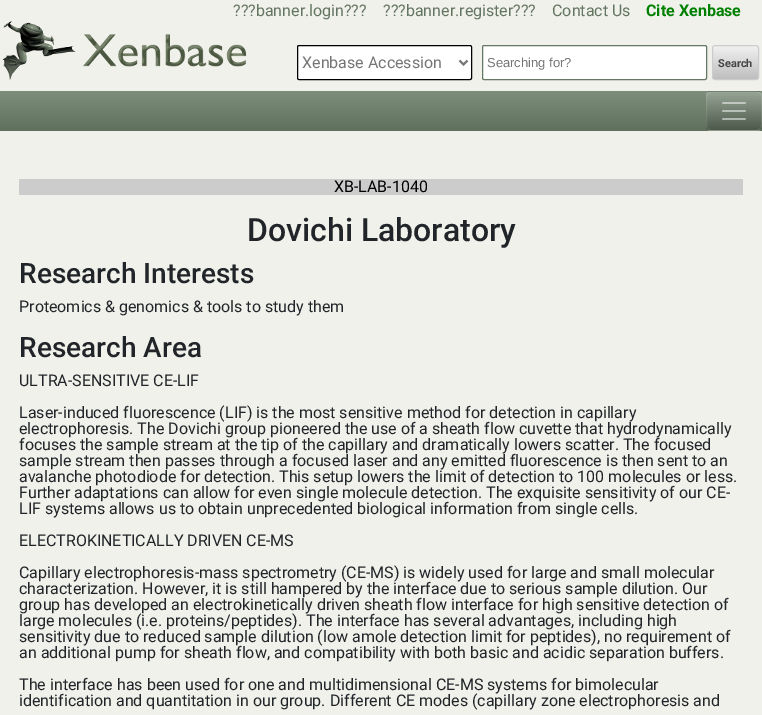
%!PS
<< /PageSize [762 715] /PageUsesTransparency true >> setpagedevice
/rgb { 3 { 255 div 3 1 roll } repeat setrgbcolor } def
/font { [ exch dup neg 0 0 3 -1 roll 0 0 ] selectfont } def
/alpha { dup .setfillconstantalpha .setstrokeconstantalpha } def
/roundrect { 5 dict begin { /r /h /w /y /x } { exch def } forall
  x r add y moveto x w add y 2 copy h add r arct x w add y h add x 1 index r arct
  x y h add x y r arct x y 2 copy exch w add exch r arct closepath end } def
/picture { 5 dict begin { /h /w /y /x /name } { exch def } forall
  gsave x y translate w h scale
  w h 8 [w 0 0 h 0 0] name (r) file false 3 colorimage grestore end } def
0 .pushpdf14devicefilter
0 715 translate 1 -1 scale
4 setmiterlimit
240 241 234 rgb
0 0 762 715 rectfill
(img/1.rgb) 2 21 245 59 picture
255 255 255 rgb
297.5 45.5 174 34 1.5 roundrect gsave fill grestore
0 0 0 rgb
stroke
119 119 119 rgb
2 setlinewidth
459.5 60.5 moveto 463.5 64.5 lineto 467.5 60.5 lineto stroke
255 255 255 rgb
482.5 45.5 224 34 1.5 roundrect gsave fill grestore
102 119 100 rgb
1 setlinewidth
stroke
gsave
712 45 47 35 3 roundrect clip newpath
gsave 712 46 moveto 759 46 lineto 759 79 lineto 712 79 lineto closepath clip newpath
<< /ShadingType 2 /ColorSpace /DeviceRGB /Coords [736 46 736 79] /Extend [true true] /Function << /FunctionType 2 /Domain [0 1] /C0 [0.945 0.945 0.945] /C1 [0.745 0.745 0.745] /N 1 >> >> shfill grestore
grestore
204 204 204 rgb
712.5 45.5 46 34 2.5 roundrect stroke
gsave 0 91 moveto 762 91 lineto 762 131 lineto 0 131 lineto closepath clip newpath
<< /ShadingType 2 /ColorSpace /DeviceRGB /Coords [381 91 381 131] /Extend [true true] /Function << /FunctionType 2 /Domain [0 1] /C0 [0.49 0.557 0.482] /C1 [0.373 0.439 0.365] /N 1 >> >> shfill grestore
gsave
706 91 56 40 6 roundrect clip newpath
gsave 706 91 moveto 762 91 lineto 762 92 lineto 706 92 lineto closepath clip newpath
<< /ShadingType 2 /ColorSpace /DeviceRGB /Coords [734 54 734 92] /Extend [true true] /Function << /FunctionType 2 /Domain [0 1] /C0 [0.592 0.647 0.584] /C1 [0.392 0.447 0.384] /N 1 >> >> shfill grestore
0.2 alpha
gsave 706 92 moveto 762 92 lineto 762 130 lineto 706 130 lineto closepath clip newpath
<< /ShadingType 2 /ColorSpace /DeviceRGB /Coords [734 92 734 130] /Extend [true true] /Function << /FunctionType 2 /Domain [0 1] /C0 [1 1 1] /C1 [0 0 0] /N 1 >> >> shfill grestore
1 alpha
gsave 706 130 moveto 762 130 lineto 762 131 lineto 706 131 lineto closepath clip newpath
<< /ShadingType 2 /ColorSpace /DeviceRGB /Coords [734 130 734 168] /Extend [true true] /Function << /FunctionType 2 /Domain [0 1] /C0 [0.498 0.553 0.49] /C1 [0.298 0.353 0.29] /N 1 >> >> shfill grestore
grestore
0.1 alpha
255 255 255 rgb
706.5 91.5 55 39 5.5 roundrect stroke
1 alpha
(img/2.rgb) 722 102 24 18 picture
204 204 204 rgb
19 179 724 16 rectfill
/Roboto-Regular 16 font
100 117 98 rgb
[
  [(???banner.login???) 233 16]
  [(???banner.register???) 383 16]
  [(Contact Us) 552 16]
] { aload pop moveto show } forall
/Roboto-Bold 16 font
0 128 0 rgb
646 16 moveto (Cite Xenbase) show
/Roboto-Regular 16 font
117 117 117 rgb
302 68 moveto (Xenbase Accession) show
/LiberationSans-Regular 13 font
487 67 moveto (Searching for?) show
/Roboto-Bold 11 font
68 68 68 rgb
718 67 moveto (Search) show
/Roboto-Regular 16 font
0 0 0 rgb
334 192 moveto (XB-LAB-1040) show
/Roboto-Medium 32 font
33 37 41 rgb
247 241 moveto (Dovichi Laboratory) show
/Roboto-Medium 28 font
19 283 moveto (Research Interests) show
/Roboto-Regular 16 font
19 312 moveto (Proteomics & genomics & tools to study them) show
/Roboto-Medium 28 font
19 357 moveto (Research Area) show
/Roboto-Regular 16 font
[
  [(ULTRA-SENSITIVE CE-LIF) 19 386]
  [(Laser-induced fluorescence \(LIF\) is the most sensitive method for detection in capillary) 19 418]
  [(electrophoresis. The Dovichi group pioneered the use of a sheath flow cuvette that hydrodynamically) 19 434]
  [(focuses the sample stream at the tip of the capillary and dramatically lowers scatter. The focused) 19 450]
  [(sample stream then passes through a focused laser and any emitted fluorescence is then sent to an) 19 466]
  [(avalanche photodiode for detection. This setup lowers the limit of detection to 100 molecules or less.) 19 482]
  [(Further adaptations can allow for even single molecule detection. The exquisite sensitivity of our CE-) 19 498]
  [(LIF systems allows us to obtain unprecedented biological information from single cells.) 19 514]
  [(ELECTROKINETICALLY DRIVEN CE-MS) 19 546]
  [(Capillary electrophoresis-mass spectrometry \(CE-MS\) is widely used for large and small molecular) 19 578]
  [(characterization. However, it is still hampered by the interface due to serious sample dilution. Our) 19 594]
  [(group has developed an electrokinetically driven sheath flow interface for high sensitive detection of) 19 610]
  [(large molecules \(i.e. proteins/peptides\). The interface has several advantages, including high) 19 626]
  [(sensitivity due to reduced sample dilution \(low amole detection limit for peptides\), no requirement of) 19 642]
  [(an additional pump for sheath flow, and compatibility with both basic and acidic separation buffers.) 19 658]
  [(The interface has been used for one and multidimensional CE-MS systems for bimolecular) 19 690]
  [(identification and quantitation in our group. Different CE modes \(capillary zone electrophoresis and) 19 706]
] { aload pop moveto show } forall
.poppdf14devicefilter showpage
